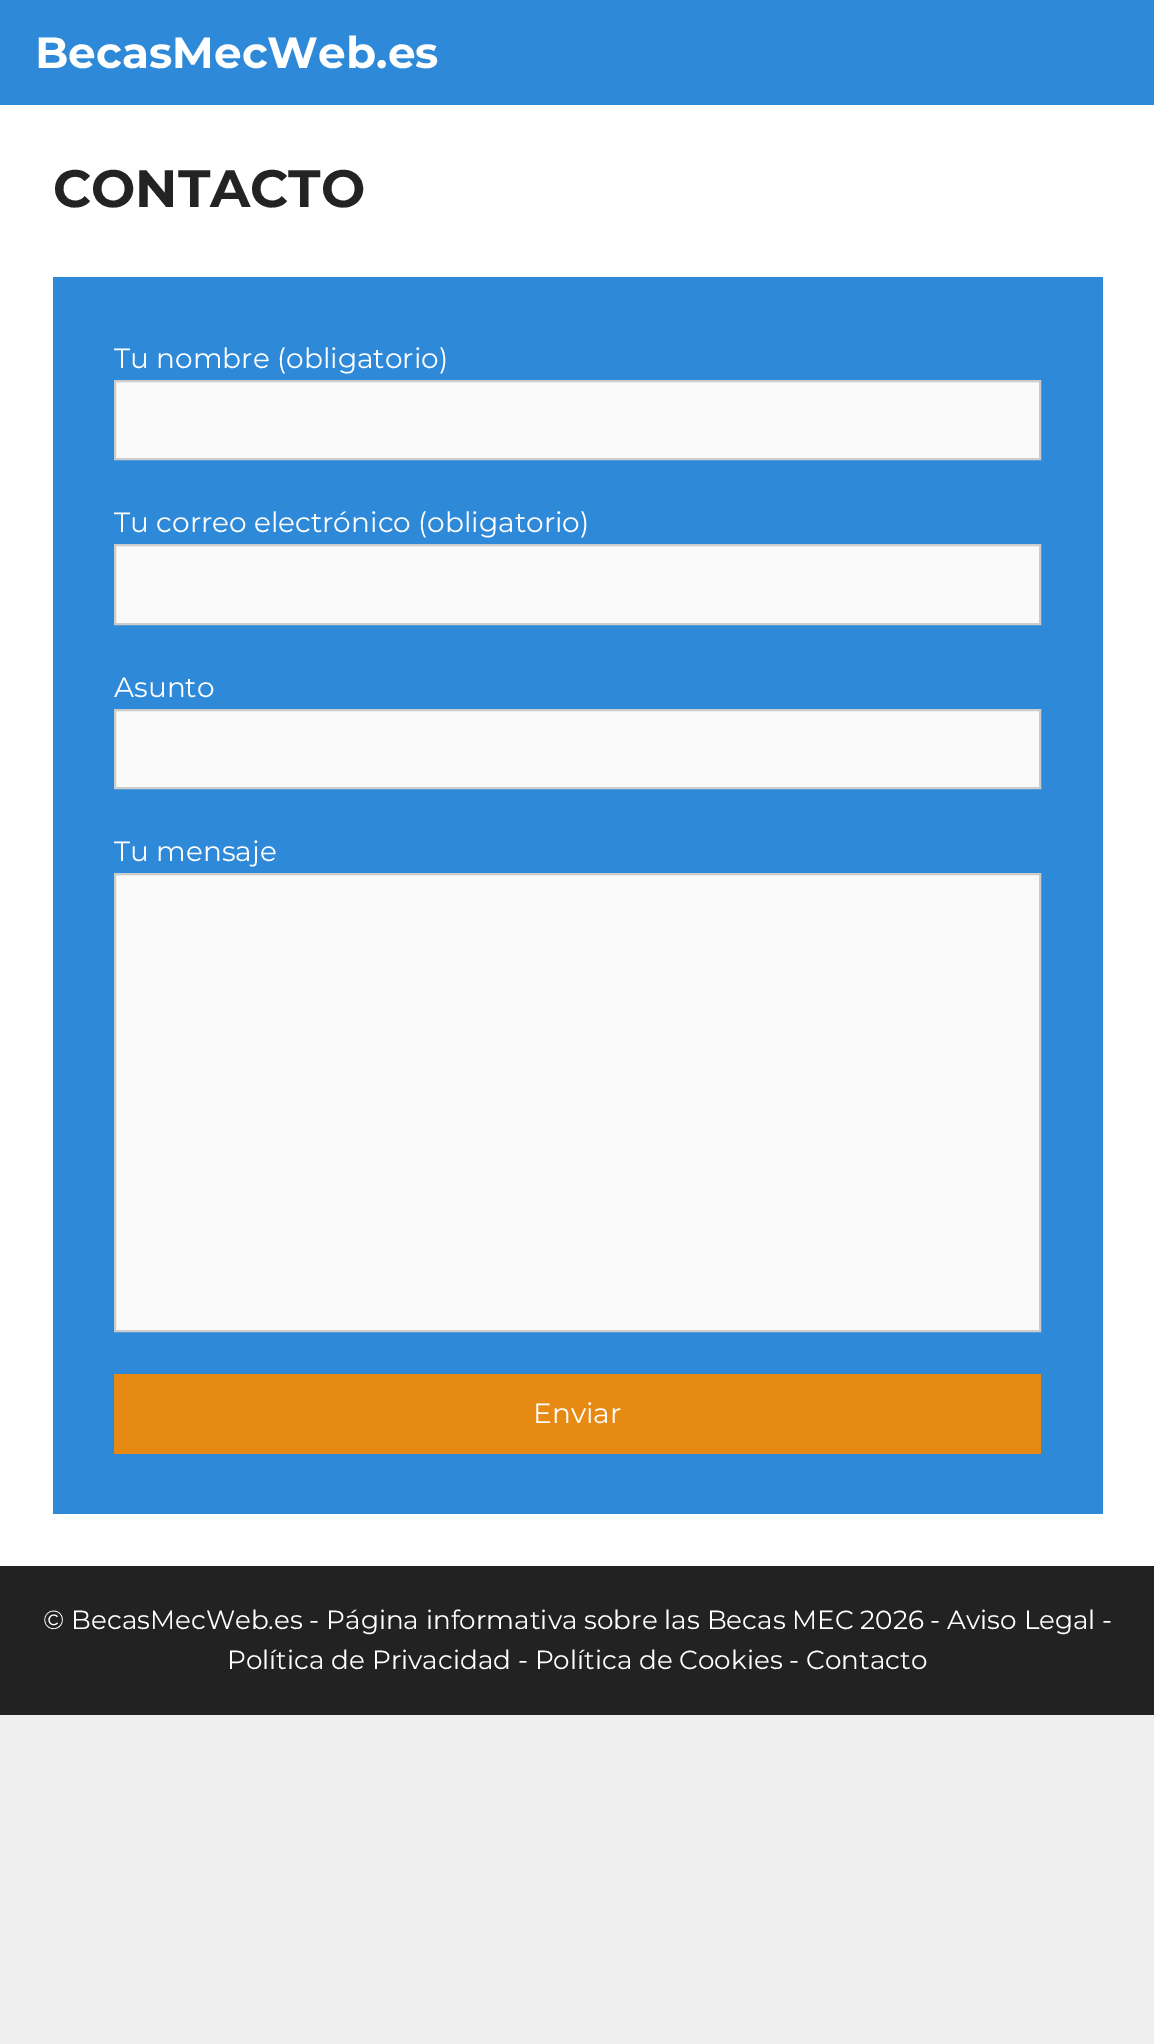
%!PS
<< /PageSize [1154 2044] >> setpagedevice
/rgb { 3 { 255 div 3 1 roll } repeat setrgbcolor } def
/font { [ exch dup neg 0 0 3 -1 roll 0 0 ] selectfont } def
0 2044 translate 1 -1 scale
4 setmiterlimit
239 239 239 rgb
0 0 1154 2044 rectfill
[
  [0 0 1154 105 46 137 216]
  [0 105 1154 1461 255 255 255]
  [53 277 1050 1237 46 137 216]
] { aload pop rgb rectfill } forall
250 250 250 rgb
115 381 moveto 1040 381 lineto 1040 459 lineto 115 459 lineto closepath gsave fill grestore
204 204 204 rgb
2 setlinewidth
stroke
250 250 250 rgb
115 545 moveto 1040 545 lineto 1040 624 lineto 115 624 lineto closepath gsave fill grestore
204 204 204 rgb
stroke
250 250 250 rgb
115 710 moveto 1040 710 lineto 1040 788 lineto 115 788 lineto closepath gsave fill grestore
204 204 204 rgb
stroke
250 250 250 rgb
115 874 moveto 1040 874 lineto 1040 1331 lineto 115 1331 lineto closepath gsave fill grestore
204 204 204 rgb
stroke
231 138 19 rgb
114 1374 927 80 rectfill
34 34 34 rgb
0 1566 1154 149 rectfill
/Montserrat-Bold 43.75 font
255 255 255 rgb
35 68 moveto (BecasMecWeb.es) show
/Montserrat-Bold 52.5 font
35 35 35 rgb
53 207 moveto (CONTACTO) show
/Montserrat-Regular 28 font
255 255 255 rgb
[
  [(Tu nombre \(obligatorio\)) 114 368]
  [(Tu correo electrónico \(obligatorio\)) 114 532]
  [(Asunto) 114 697]
  [(Tu mensaje) 114 861]
  [(Enviar) 533 1423]
] { aload pop moveto show } forall
/Montserrat-Regular 26.25 font
43 1629 moveto (© BecasMecWeb.es - Página informativa sobre las Becas MEC 2026 - Aviso Legal -) show
227 1669 moveto (Política de Privacidad - Política de Cookies - Contacto) show
showpage
